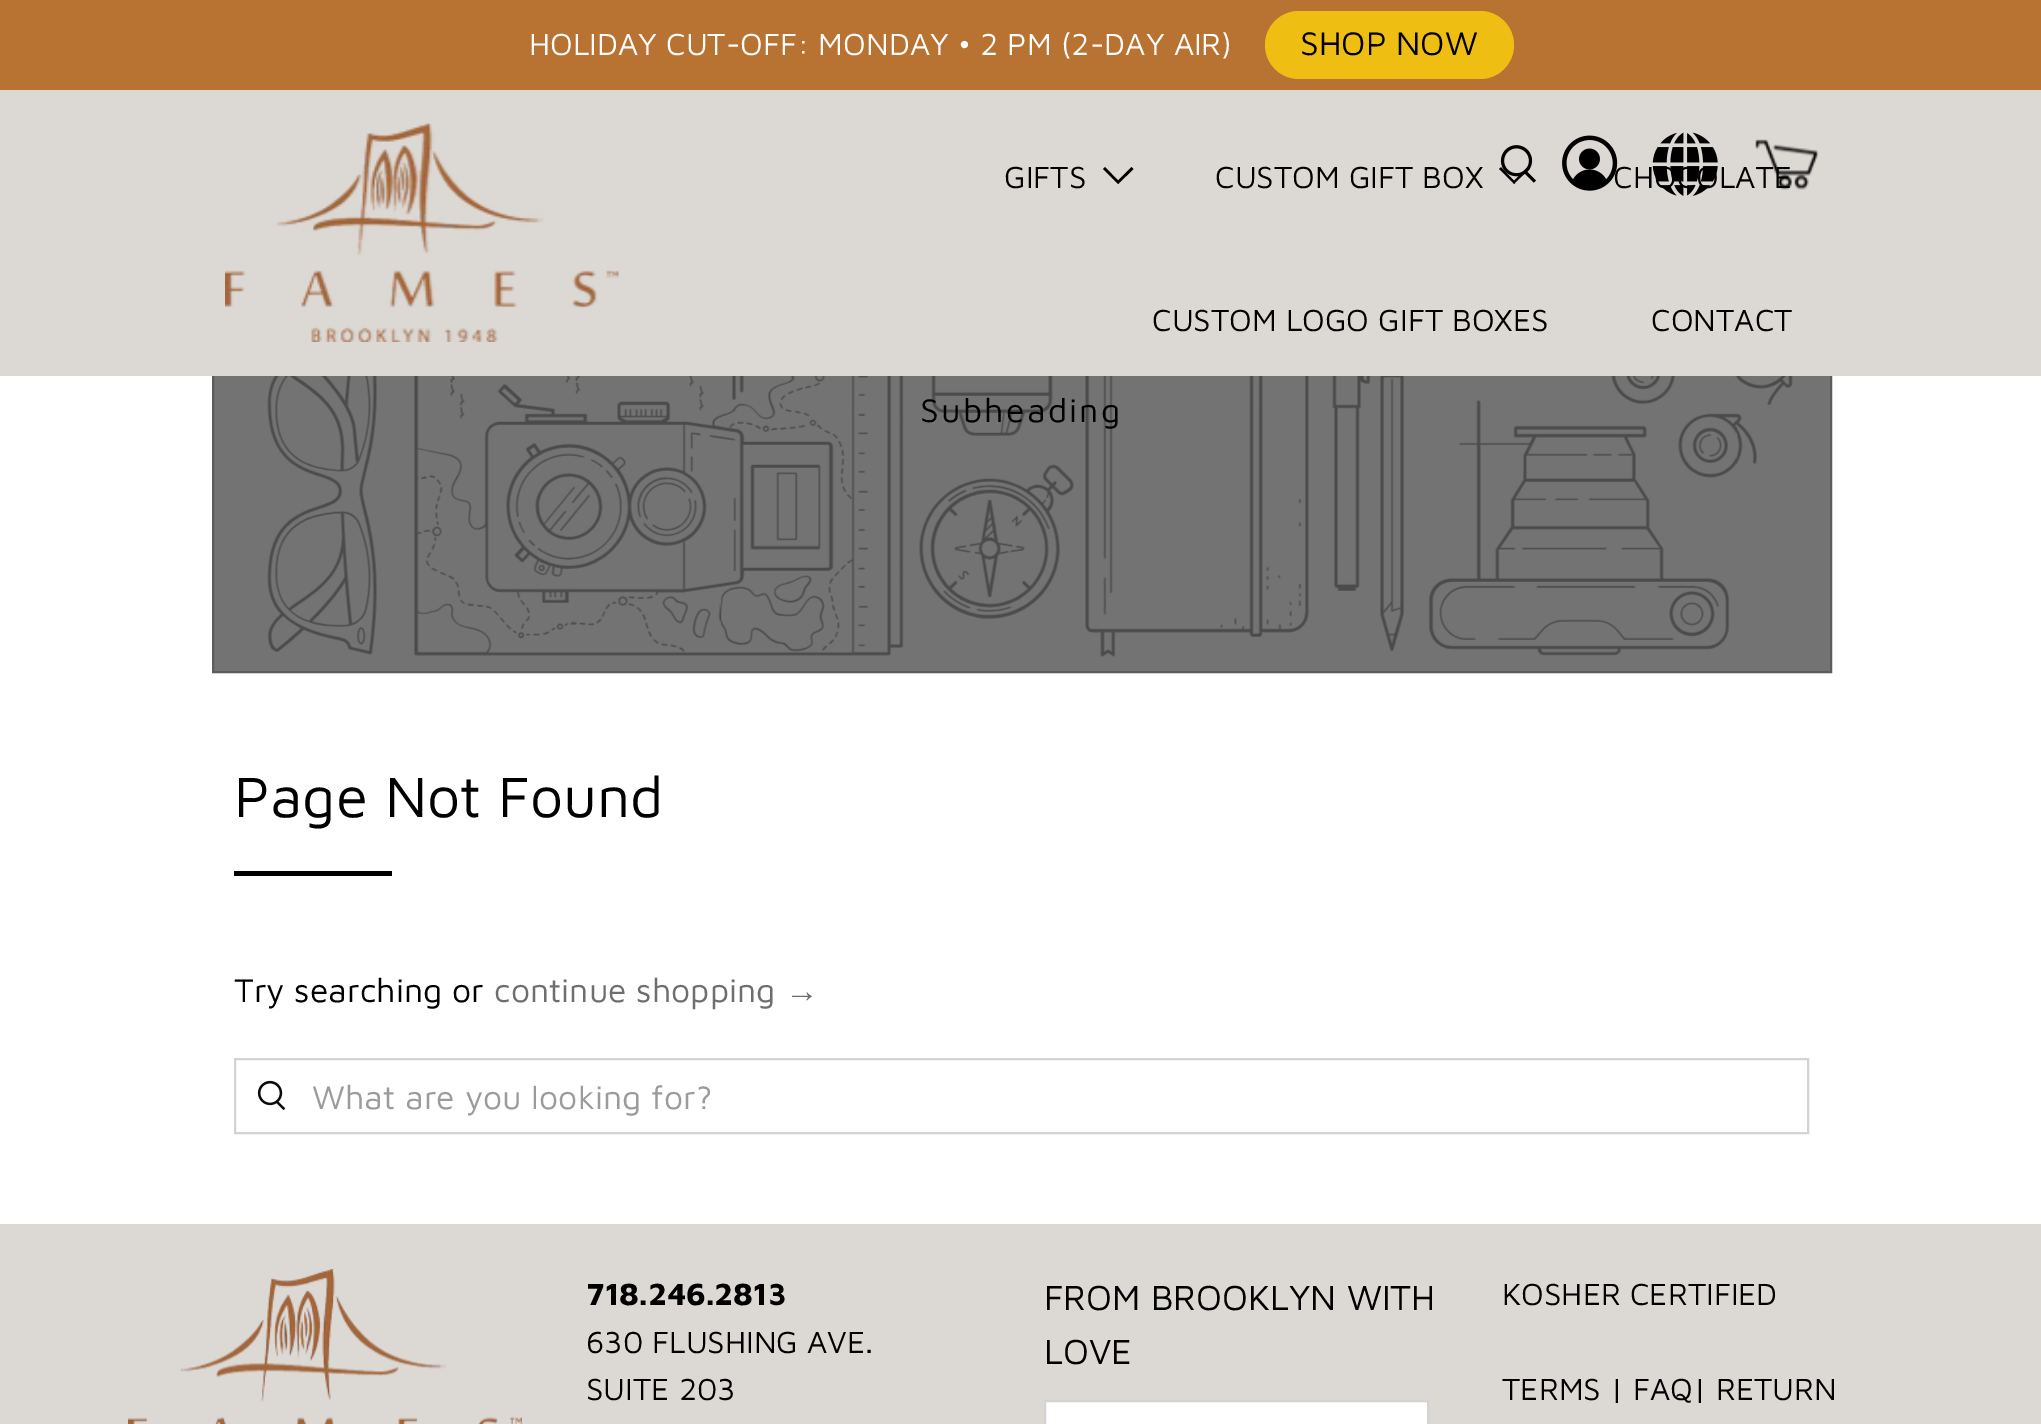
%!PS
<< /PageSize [2041 1424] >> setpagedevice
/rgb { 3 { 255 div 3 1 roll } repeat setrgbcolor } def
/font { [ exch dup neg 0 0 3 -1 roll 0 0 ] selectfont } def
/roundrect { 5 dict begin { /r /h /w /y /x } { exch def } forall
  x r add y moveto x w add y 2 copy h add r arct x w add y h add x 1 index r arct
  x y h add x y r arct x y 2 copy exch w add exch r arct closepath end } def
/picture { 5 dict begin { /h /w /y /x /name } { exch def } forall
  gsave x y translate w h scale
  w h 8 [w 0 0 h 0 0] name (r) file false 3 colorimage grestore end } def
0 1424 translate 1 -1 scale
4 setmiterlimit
255 255 255 rgb
0 0 2041 1424 rectfill
115 115 115 rgb
214 376 1616 295 rectfill
92 92 92 rgb
2 setlinewidth
213 55 1618 617 rectstroke
184 115 51 rgb
0 0 2041 90 rectfill
238 190 19 rgb
1265 11 249 68 34 roundrect fill
220 217 213 rgb
0 90 2041 286 rectfill
0 0 0 rgb
1514 184 moveto 1499 169 lineto 1501 167 lineto 1514 180.5 lineto 1527.5 167 lineto 1529.5 169 lineto closepath fill
(img/1.rgb) 1500 145 36 38 picture
(img/3.rgb) 1652 132 66 64 picture
(img/5.rgb) 225 123 394 219 picture
1118 184 moveto 1103 169 lineto 1105 167 lineto 1118 180.5 lineto 1131.5 167 lineto 1133.5 169 lineto closepath fill
(img/6.rgb) 267 376 1526 281 picture
234 871 158 5 rectfill
211 211 211 rgb
235 1059 1573 74 rectstroke
(img/7.rgb) 257 1080 29 31 picture
220 217 213 rgb
0 1224 2041 200 rectfill
(img/8.rgb) 128 1269 394 155 picture
255 255 255 rgb
1045 1401 moveto 1428 1401 lineto 1428 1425 lineto 1045 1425 lineto closepath gsave fill grestore
211 211 211 rgb
stroke
/MavenPro-Regular 31.5 font
255 255 255 rgb
529 55 moveto (HOLIDAY CUT-OFF: MONDAY • 2 PM \(2-DAY AIR\)) show
/MavenPro-Regular 33.75 font
0 0 0 rgb
1300 55 moveto (SHOP NOW) show
/MavenPro-Regular 31.5 font
[
  [(GIFTS) 1004 188]
  [(CUSTOM GIFT BOX) 1215 188]
  [(CH) 1613 188]
] { aload pop moveto show } forall
(img/2.rgb) 1562 135 56 56 picture
1719 188 moveto (LAT) show
(img/4.rgb) 1754 139 65 51 picture
1152 331 moveto (CUSTOM LOGO GIFT BOXES) show
1651 331 moveto (CONTACT) show
/MavenPro-Regular 33.75 font
920 422 moveto 2.25 0 (Subheading) ashow
/MavenPro-Regular 58.5 font
234 817 moveto (Page Not Found) show
/MavenPro-Regular 33.75 font
234 1002 moveto (Try searching or) show
110 110 111 rgb
494 1002 moveto (continue shopping) show
/LiberationSans-Regular 33.75 font
785 1002 moveto (→) show
/MavenPro-Regular 33.75 font
155 155 155 rgb
312 1109 moveto (What are you looking for?) show
/MavenPro-Bold 31.5 font
0 0 0 rgb
586 1305 moveto (718.246.2813) show
/MavenPro-Regular 31.5 font
586 1353 moveto (630 FLUSHING AVE.) show
586 1400 moveto (SUITE 203) show
/MavenPro-Regular 36 font
1044 1310 moveto (FROM BROOKLYN WITH) show
1044 1364 moveto (LOVE) show
/MavenPro-Regular 31.5 font
1502 1305 moveto (KOSHER CERTIFIED) show
1502 1400 moveto (TERMS | FAQ| RETURN) show
showpage
